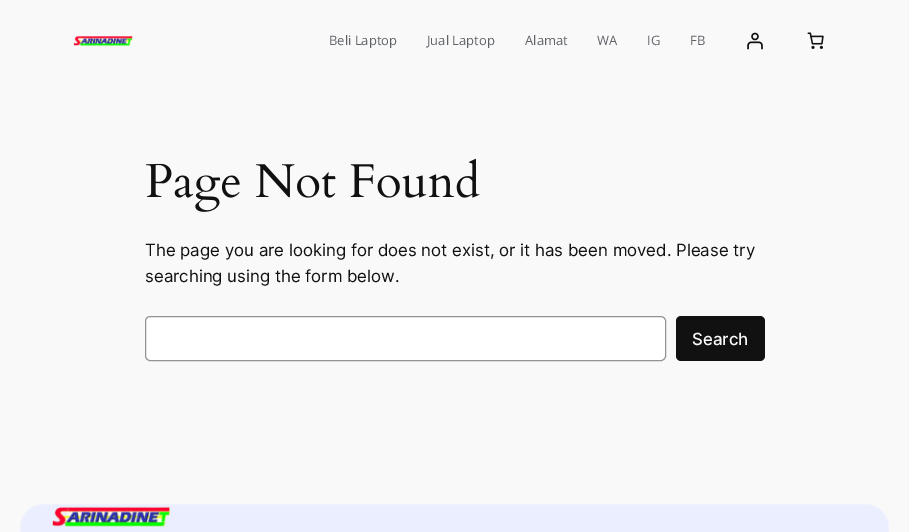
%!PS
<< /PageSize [909 532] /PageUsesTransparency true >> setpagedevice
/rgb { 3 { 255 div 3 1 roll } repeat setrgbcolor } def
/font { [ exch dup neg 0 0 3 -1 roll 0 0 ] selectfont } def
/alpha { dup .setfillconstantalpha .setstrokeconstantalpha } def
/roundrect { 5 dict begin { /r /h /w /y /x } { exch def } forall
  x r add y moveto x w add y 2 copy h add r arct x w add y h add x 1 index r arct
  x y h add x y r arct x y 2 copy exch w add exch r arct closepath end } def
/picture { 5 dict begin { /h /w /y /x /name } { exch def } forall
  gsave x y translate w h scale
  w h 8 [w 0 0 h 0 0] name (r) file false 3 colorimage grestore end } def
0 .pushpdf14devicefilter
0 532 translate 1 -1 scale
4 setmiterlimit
249 249 249 rgb
0 0 909 532 rectfill
(img/1.rgb) 73 36 60 11 picture
(img/2.rgb) 747 32 16 18 picture
(img/3.rgb) 807 32 17 17 picture
(img/4.rgb) 146 158 334 54 picture
255 255 255 rgb
145.5 316.5 520 44 4.5 roundrect gsave fill grestore
148 148 148 rgb
stroke
17 17 17 rgb
676 316 89 45 5 roundrect fill
234 238 254 rgb
20 504 869 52 24 roundrect fill
0.21 alpha
255 255 255 rgb
20.5 504.5 868 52 23.5 roundrect stroke
1 alpha
(img/5.rgb) 52 506 119 21 picture
/OpenSans-Regular 13 font
95 99 104 rgb
[
  [(Beli Laptop) 329 45]
  [(Jual Laptop) 427 45]
  [(Alamat) 525 45]
  [(WA) 597 45]
  [(IG) 647 45]
  [(FB) 690 45]
] { aload pop moveto show } forall
/Inter-Regular 16.8 font
17 17 17 rgb
145 256 moveto (The page you are looking for does not exist, or it has been moved. Please try) show
145 282 moveto (searching using the form below.) show
/Inter-Medium 16.8 font
249 249 249 rgb
692 345 moveto (Search) show
.poppdf14devicefilter showpage
